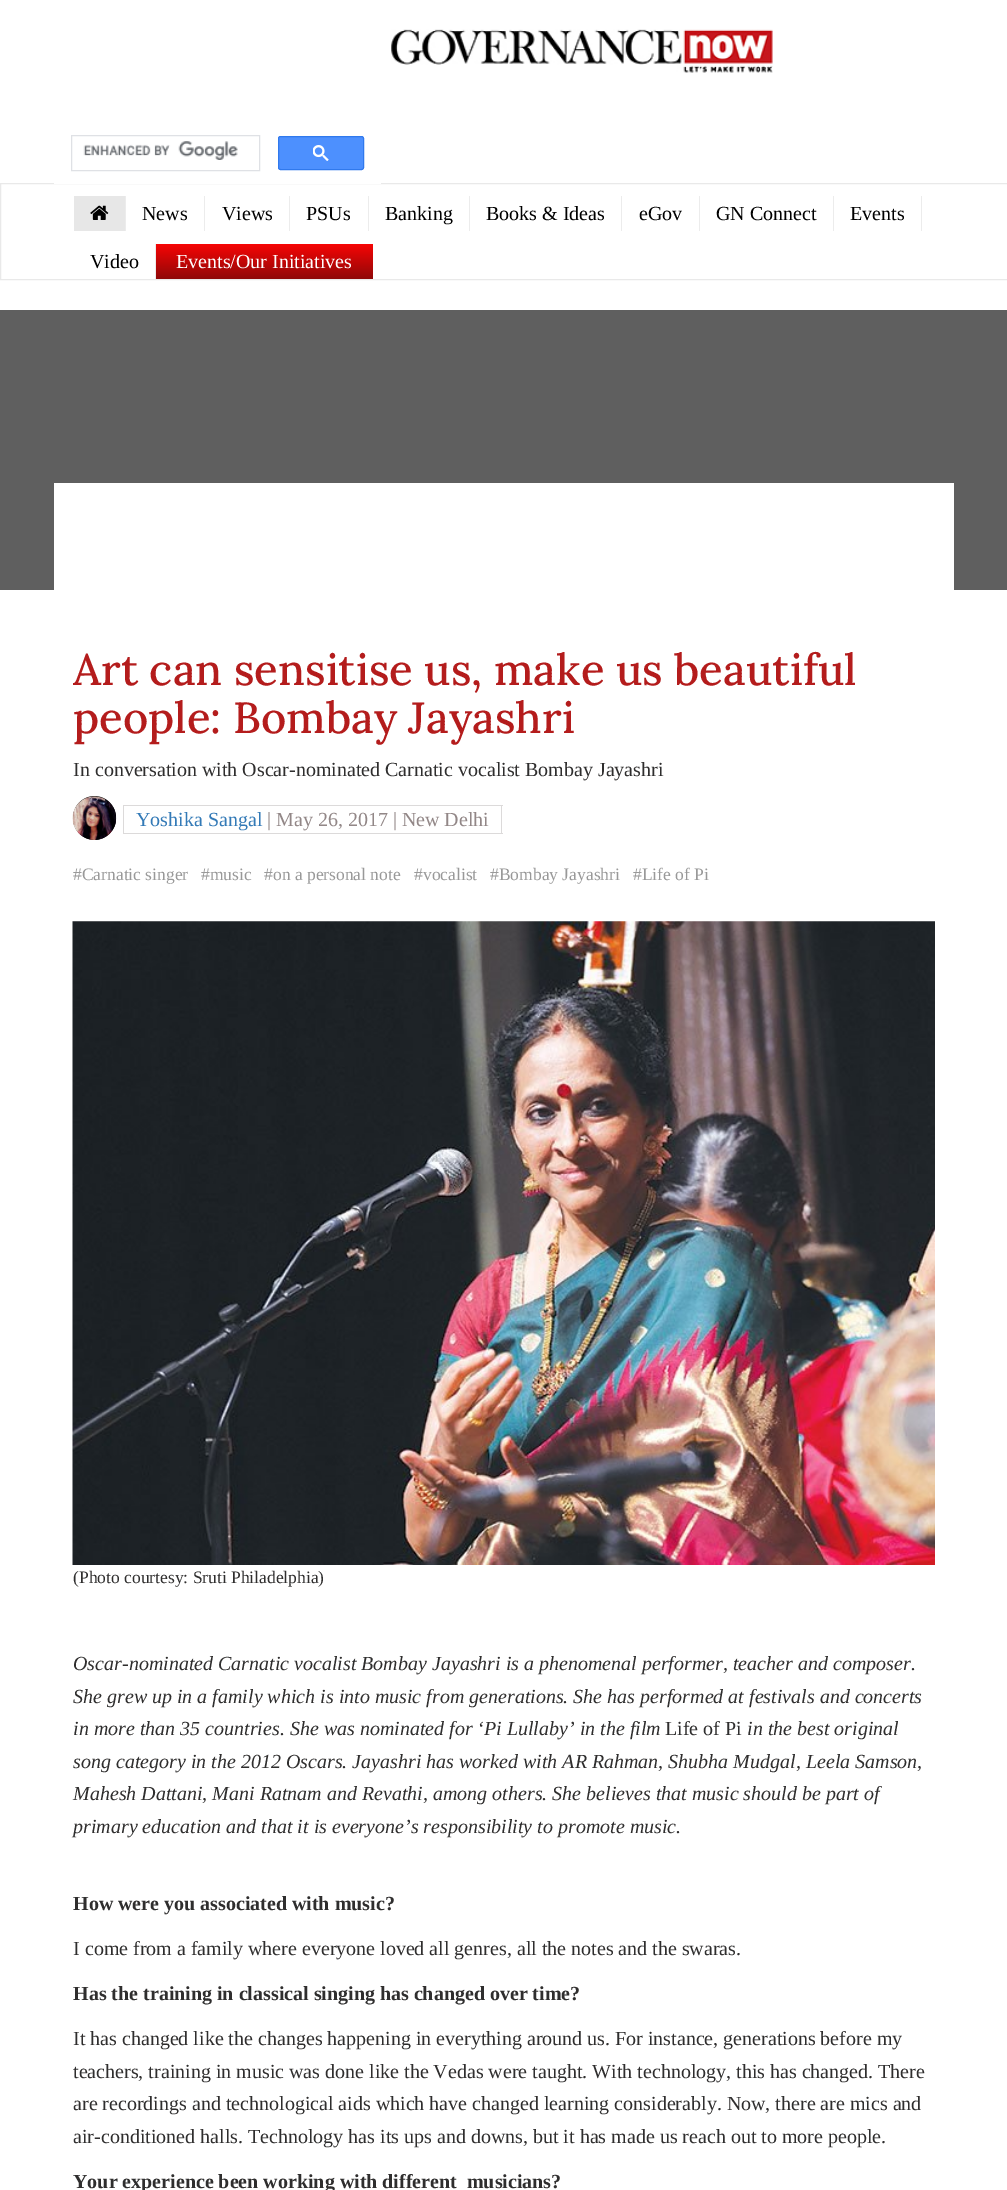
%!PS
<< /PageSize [1007 2190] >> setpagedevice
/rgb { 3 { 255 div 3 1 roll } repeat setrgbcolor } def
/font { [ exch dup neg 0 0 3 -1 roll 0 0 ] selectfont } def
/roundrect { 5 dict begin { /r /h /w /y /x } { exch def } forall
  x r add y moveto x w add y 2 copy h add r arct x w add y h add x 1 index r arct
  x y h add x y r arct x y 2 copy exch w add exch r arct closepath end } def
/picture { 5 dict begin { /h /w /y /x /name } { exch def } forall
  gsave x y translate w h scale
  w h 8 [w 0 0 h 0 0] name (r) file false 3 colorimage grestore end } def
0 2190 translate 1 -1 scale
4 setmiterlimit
255 255 255 rgb
0 0 1007 2190 rectfill
(img/1.rgb) 391 29 382 44 picture
233 233 233 rgb
0.5 183.5 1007 96 rectstroke
255 255 255 rgb
54 183 327 1 rectfill
223 225 229 rgb
71.5 135.5 188 35 rectstroke
(img/2.rgb) 83 141 155 19 picture
77 144 254 rgb
278.5 136.5 85 33 2 roundrect gsave fill grestore
48 121 237 rgb
stroke
(img/3.rgb) 313 145 16 16 picture
231 231 231 rgb
74 196 51 35 rectfill
236 236 236 rgb
125 196 1 35 rectfill
(img/4.rgb) 90 205 19 15 picture
[
  [204 196 1 35 236 236 236]
  [289 196 1 35 236 236 236]
  [368 196 1 35 236 236 236]
  [469 196 1 35 236 236 236]
  [621 196 1 35 236 236 236]
  [699 196 1 35 236 236 236]
  [833 196 1 35 236 236 236]
  [921 196 1 35 236 236 236]
  [155 244 1 35 236 236 236]
] { aload pop rgb rectfill } forall
gsave 156 244 moveto 373 244 lineto 373 279 lineto 156 279 lineto closepath clip newpath
<< /ShadingType 2 /ColorSpace /DeviceRGB /Coords [264 244 264 279] /Extend [true true] /Function << /FunctionType 2 /Domain [0 1] /C0 [0.969 0.02 0.02] /C1 [0.561 0.031 0.031] /N 1 >> >> shfill grestore
95 95 95 rgb
0 310 1007 280 rectfill
255 255 255 rgb
54 483 900 107 rectfill
0 0 0 rgb
73 796 43 44 21.5 roundrect fill
(img/5.rgb) 72 796 45 44 picture
[
  [123 805 380 1 220 218 218]
  [123 833 140 1 220 218 218]
  [123 805 1 29 220 218 218]
  [501 805 1 29 220 218 218]
  [263 833 240 1 220 218 218]
] { aload pop rgb rectfill } forall
(img/6.rgb) 72 921 863 644 picture
/LiberationSerif-Regular 20 font
0 0 0 rgb
[
  [(News) 142 220]
  [(Views) 222 220]
  [(PSUs) 306 220]
  [(Banking) 385 220]
  [(Books & Ideas) 486 220]
  [(eGov) 639 220]
  [(GN Connect) 716 220]
  [(Events) 850 220]
  [(Video) 90 268]
] { aload pop moveto show } forall
255 255 255 rgb
176 268 moveto (Events/Our Initiatives) show
/Lora-Medium 43.75 font
180 28 28 rgb
73 685 moveto (Art can sensitise us, make us beautiful) show
73 733 moveto (people: Bombay Jayashri) show
/LiberationSerif-Regular 20 font
47 46 46 rgb
73 776 moveto (In conversation with Oscar-nominated Carnatic vocalist Bombay Jayashri) show
51 122 183 rgb
136 826 moveto (Yoshika Sangal) show
146 135 135 rgb
267 826 moveto (| May 26, 2017 | New Delhi) show
/LiberationSerif-Regular 17.5 font
153 153 153 rgb
[
  [(#Carnatic singer) 73 880]
  [(#music) 201 880]
  [(#on a personal note) 264 880]
  [(#vocalist) 414 880]
  [(#Bombay Jayashri) 490 880]
  [(#Life of Pi) 633 880]
] { aload pop moveto show } forall
47 46 46 rgb
73 1583 moveto (\(Photo courtesy: Sruti Philadelphia\)) show
/LiberationSerif-Italic 20 font
[
  [(Oscar-nominated Carnatic vocalist Bombay Jayashri is a phenomenal performer, teacher and composer.) 73 1670]
  [(She grew up in a family which is into music from generations. She has performed at festivals and concerts) 73 1703]
  [(in more than 35 countries. She was nominated for ‘Pi Lullaby’ in the film) 73 1735]
] { aload pop moveto show } forall
/LiberationSerif-Regular 20 font
665 1735 moveto (Life of Pi) show
/LiberationSerif-Italic 20 font
[
  [(in the best original) 747 1735]
  [(song category in the 2012 Oscars. Jayashri has worked with AR Rahman, Shubha Mudgal, Leela Samson,) 73 1768]
  [(Mahesh Dattani, Mani Ratnam and Revathi, among others. She believes that music should be part of) 73 1800]
  [(primary education and that it is everyone’s responsibility to promote music.) 73 1833]
] { aload pop moveto show } forall
/LiberationSerif-Bold 20 font
73 1910 moveto (How were you associated with music?) show
/LiberationSerif-Regular 20 font
73 1955 moveto (I come from a family where everyone loved all genres, all the notes and the swaras.) show
/LiberationSerif-Bold 20 font
73 2000 moveto (Has the training in classical singing has changed over time?) show
/LiberationSerif-Regular 20 font
[
  [(It has changed like the changes happening in everything around us. For instance, generations before my) 73 2045]
  [(teachers, training in music was done like the Vedas were taught. With technology, this has changed. There) 73 2078]
  [(are recordings and technological aids which have changed learning considerably. Now, there are mics and) 73 2110]
  [(air-conditioned halls. Technology has its ups and downs, but it has made us reach out to more people.) 73 2143]
] { aload pop moveto show } forall
/LiberationSerif-Bold 20 font
73 2188 moveto (Your experience been working with different  musicians?) show
showpage
